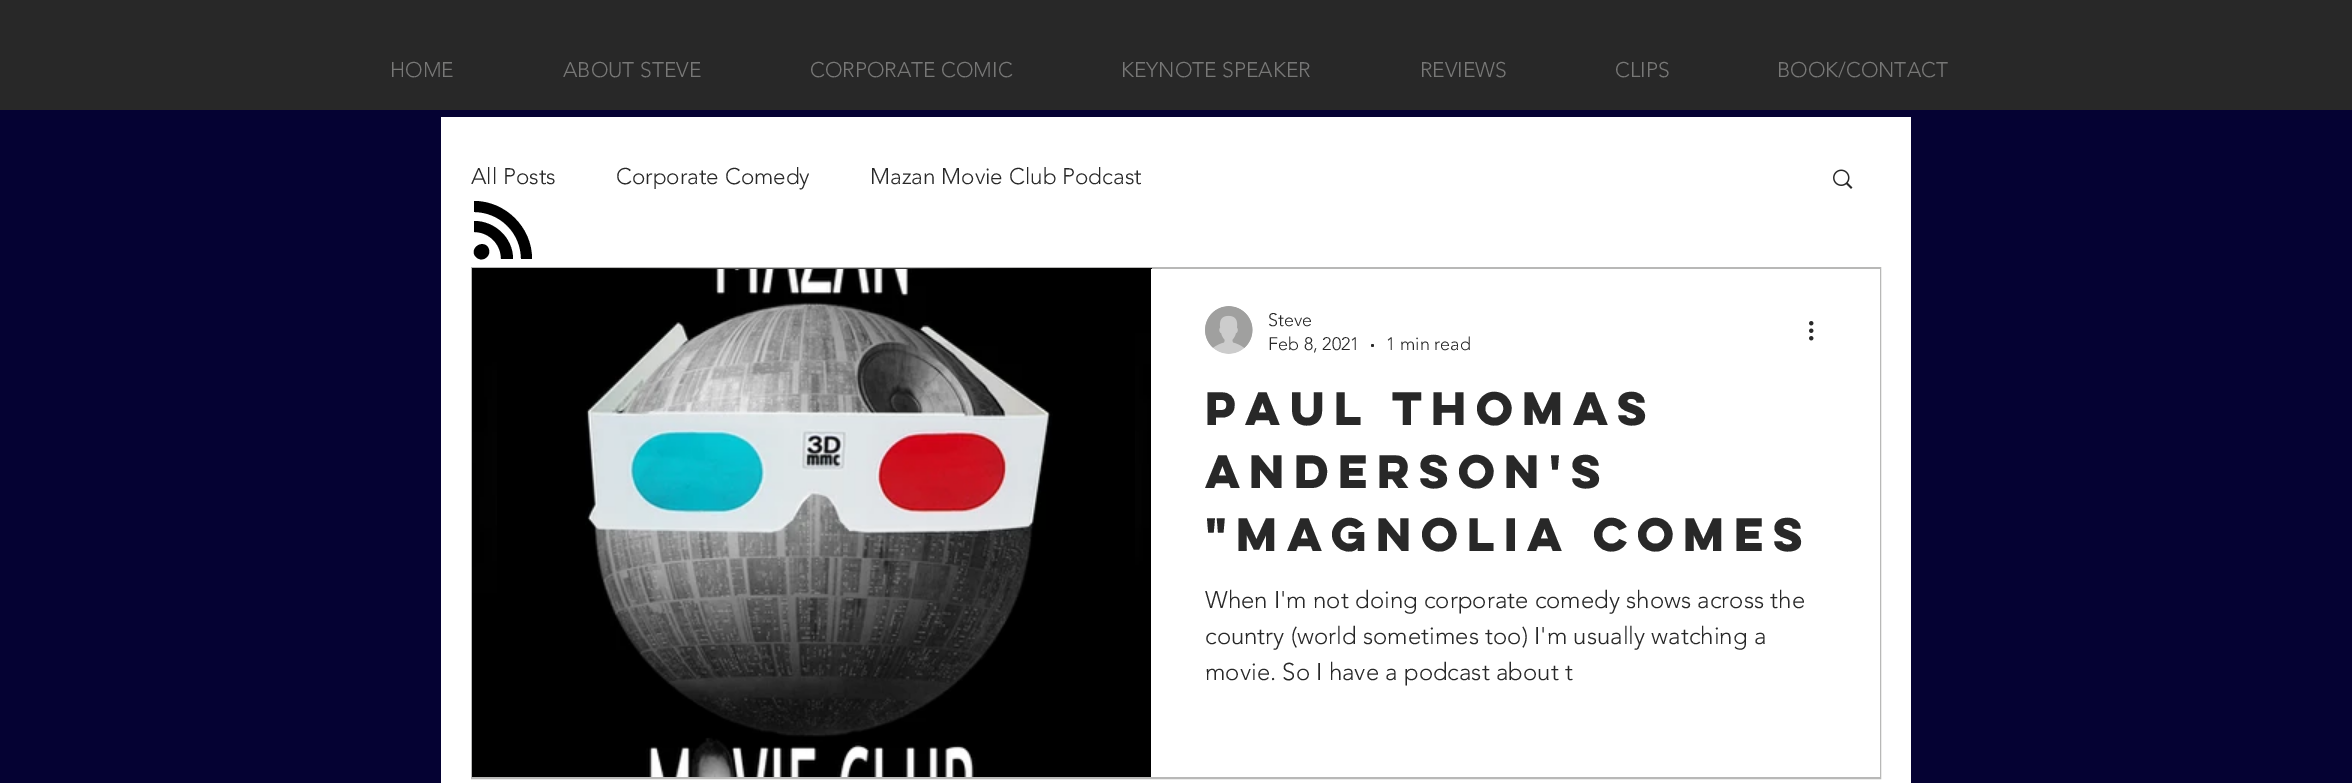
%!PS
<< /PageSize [2352 783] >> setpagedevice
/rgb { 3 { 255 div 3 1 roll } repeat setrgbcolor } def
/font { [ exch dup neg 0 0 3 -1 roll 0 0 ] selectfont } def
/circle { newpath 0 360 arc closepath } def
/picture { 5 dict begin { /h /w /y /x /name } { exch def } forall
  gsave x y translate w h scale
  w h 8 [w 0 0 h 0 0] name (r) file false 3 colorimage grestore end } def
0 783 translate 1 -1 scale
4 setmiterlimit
5 2 51 rgb
0 0 2352 783 rectfill
40 40 40 rgb
0 0 2352 110 rectfill
255 255 255 rgb
441 117 1470 666 rectfill
(img/1.rgb) 1833 169 20 20 picture
184 184 183 rgb
2 setlinewidth
472 268 1408 510 rectstroke
(img/2.rgb) 472 268 680 509 picture
(img/3.rgb) 497 269 638 508 picture
255 255 255 rgb
1151 269 729 508 rectfill
(img/4.rgb) 1205 306 48 48 picture
40 40 40 rgb
1372.5 345.5 1.5 circle fill
(img/5.rgb) 1809 321 5 20 picture
0 0 0 rgb
474 221 moveto 495 221 513 238 513 259 curveto 501 259 lineto 501 244 489 232 474 232 curveto closepath 474 201 moveto 505 201 532 227 532 259 curveto 521 259 lineto 521 233 500 212 474 212 curveto closepath 487 246 moveto 494 254 483 264 476 257 curveto 469 250 480 240 487 246 curveto closepath eofill
/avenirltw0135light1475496-Light 21 font
120 120 119 rgb
[
  [(HOME) 390 77]
  [(ABOUT STEVE) 563 77]
  [(CORPORATE COMIC) 810 77]
  [(KEYNOTE SPEAKER) 1121 77]
  [(REVIEWS) 1420 77]
  [(CLIPS) 1615 77]
  [(BOOK/CONTACT) 1777 77]
] { aload pop moveto show } forall
/avenirltw0135light1475496-Light 22.5 font
40 40 40 rgb
[
  [(All Posts) 471 184]
  [(Corporate Comedy) 616 184]
  [(Mazan Movie Club Podcast) 870 184]
] { aload pop moveto show } forall
/avenirltw0135light1475496-Light 18 font
[
  [(Steve) 1268 326]
  [(Feb 8, 2021) 1268 350]
  [(1 min read) 1386 350]
] { aload pop moveto show } forall
/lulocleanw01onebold-Bold 42 font
[
  [(Paul Thomas) 1205 425]
  [(Anderson's) 1205 488]
  [("Magnolia comes) 1205 551]
] { aload pop moveto show } forall
/avenirltw0135light1475496-Light 24 font
[
  [(When I'm not doing corporate comedy shows across the) 1205 608]
  [(country \(world sometimes too\) I'm usually watching a) 1205 644]
  [(movie. So I have a podcast about t) 1205 680]
] { aload pop moveto show } forall
showpage
